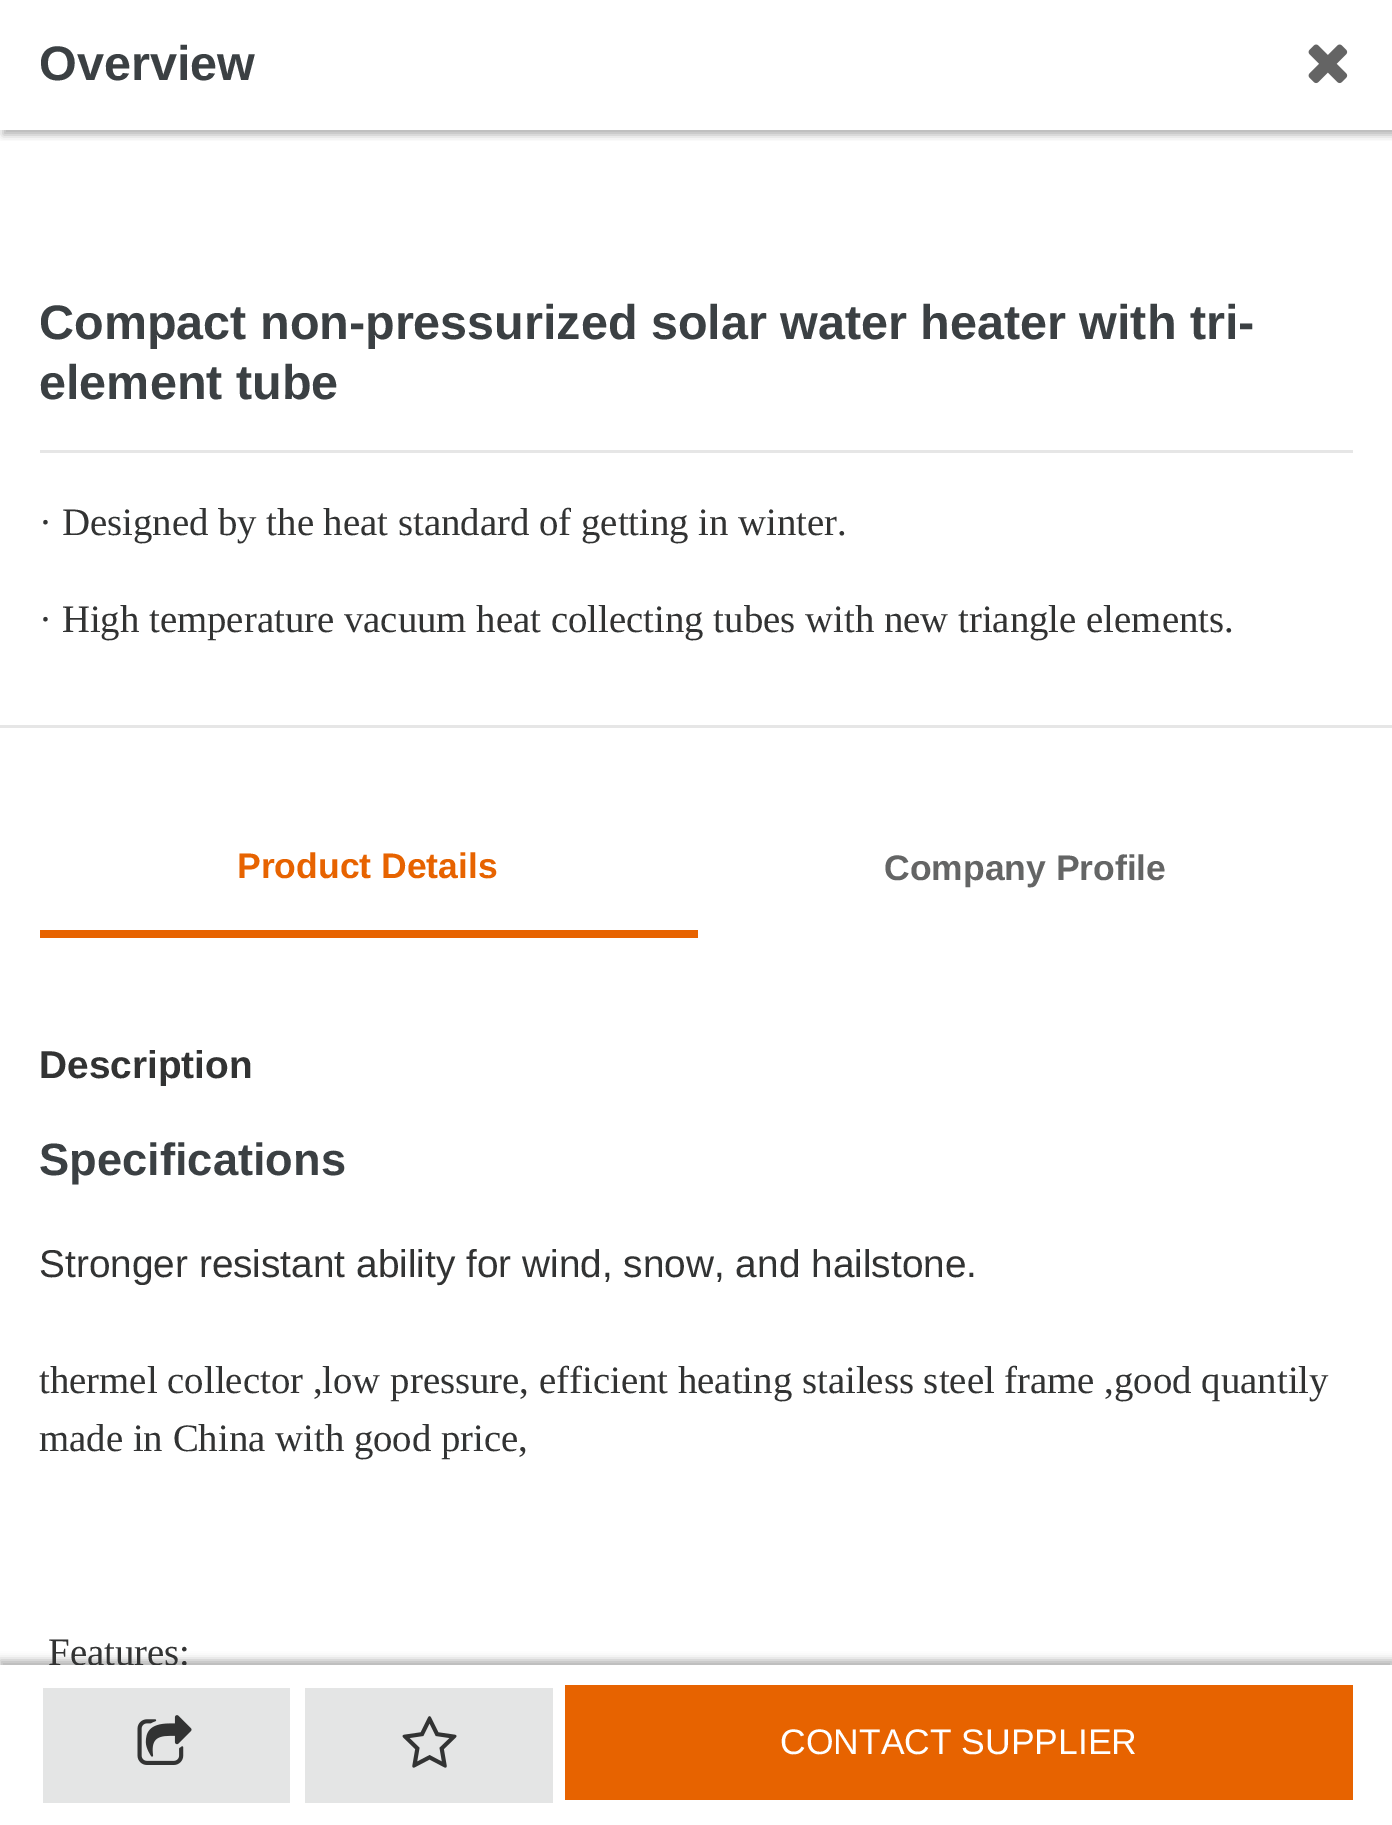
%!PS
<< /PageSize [1392 1825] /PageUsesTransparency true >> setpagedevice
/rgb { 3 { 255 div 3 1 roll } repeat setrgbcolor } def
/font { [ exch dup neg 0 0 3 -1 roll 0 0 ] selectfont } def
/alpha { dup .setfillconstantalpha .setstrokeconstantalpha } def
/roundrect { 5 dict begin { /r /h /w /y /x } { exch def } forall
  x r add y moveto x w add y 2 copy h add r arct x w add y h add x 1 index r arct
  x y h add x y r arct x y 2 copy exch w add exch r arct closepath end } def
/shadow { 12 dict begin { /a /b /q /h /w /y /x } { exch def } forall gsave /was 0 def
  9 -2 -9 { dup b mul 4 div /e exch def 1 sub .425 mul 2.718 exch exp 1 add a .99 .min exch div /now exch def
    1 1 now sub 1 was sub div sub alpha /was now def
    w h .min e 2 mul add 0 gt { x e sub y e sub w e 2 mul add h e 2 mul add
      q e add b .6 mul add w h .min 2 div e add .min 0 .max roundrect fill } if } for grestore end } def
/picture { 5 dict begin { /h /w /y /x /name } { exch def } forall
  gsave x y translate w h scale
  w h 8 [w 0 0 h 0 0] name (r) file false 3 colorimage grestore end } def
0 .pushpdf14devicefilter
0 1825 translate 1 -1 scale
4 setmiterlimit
255 255 255 rgb
0 0 1392 1825 rectfill
gsave
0 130 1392 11 rectclip
0 0 0 rgb
3 5 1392 130 0 4 0.3 shadow
grestore
(img/1.rgb) 1308 44 40 40 picture
[
  [40 450 1313 3 230 230 230]
  [0 725 1392 3 230 230 230]
  [40 930 658 8 231 99 0]
] { aload pop rgb rectfill } forall
0 0 0 rgb
0 1660 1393 160 0 4 0.3 shadow
/LiberationSans-Bold 48.5 font
59 64 67 rgb
[
  [(Overview) 39 80]
  [(Compact non-pressurized solar water heater with tri-) 39 339]
  [(element tube) 39 399]
] { aload pop moveto show } forall
/LiberationSerif-Regular 38.8 font
50 51 51 rgb
39 535 moveto (· Designed by the heat standard of getting in winter.) show
39 632 moveto (· High temperature vacuum heat collecting tubes with new triangle elements.) show
/LiberationSans-Bold 35.5 font
231 99 0 rgb
237 878 moveto (Product Details) show
100 101 101 rgb
884 880 moveto (Company Profile) show
/LiberationSans-Bold 38.8 font
50 51 51 rgb
39 1078 moveto (Description) show
/LiberationSans-Bold 45.25 font
59 64 67 rgb
39 1175 moveto (Specifications) show
/LiberationSans-Regular 38.8 font
50 51 51 rgb
39 1277 moveto (Stronger resistant ability for wind, snow, and hailstone.) show
/LiberationSerif-Regular 38.8 font
[
  [(thermel collector ,low pressure, efficient heating stailess steel frame ,good quantily) 39 1393]
  [(made in China with good price,) 39 1451]
  [(Features:) 48 1665]
] { aload pop moveto show } forall
255 255 255 rgb
0 1665 1392 160 rectfill
228 229 229 rgb
43 1688 247 115 rectfill
(img/2.rgb) 137 1715 55 50 picture
305 1688 248 115 rectfill
(img/3.rgb) 402 1716 55 52 picture
231 99 0 rgb
565 1685 788 115 rectfill
/LiberationSans-Regular 35.5 font
255 255 255 rgb
780 1754 moveto (CONTACT SUPPLIER) show
.poppdf14devicefilter showpage
